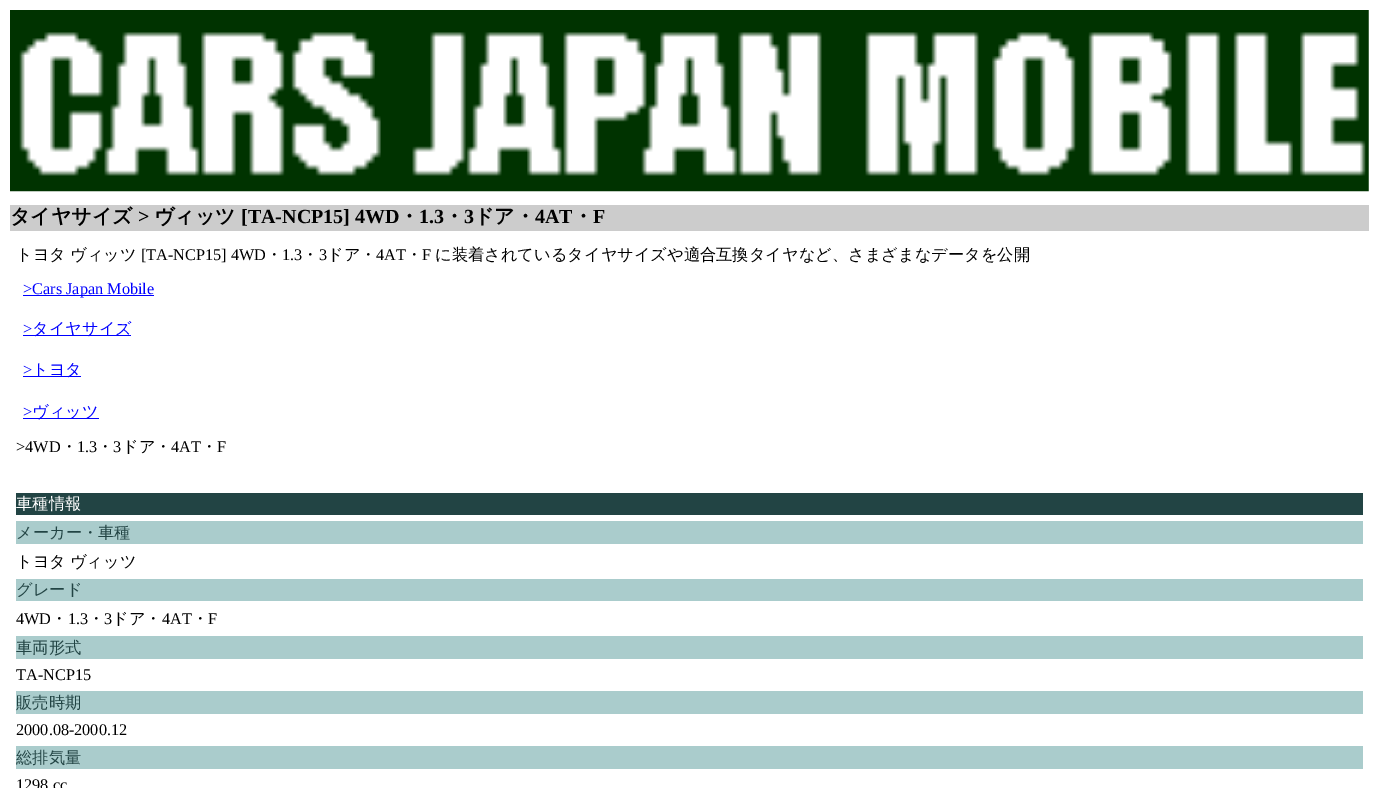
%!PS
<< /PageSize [1378 788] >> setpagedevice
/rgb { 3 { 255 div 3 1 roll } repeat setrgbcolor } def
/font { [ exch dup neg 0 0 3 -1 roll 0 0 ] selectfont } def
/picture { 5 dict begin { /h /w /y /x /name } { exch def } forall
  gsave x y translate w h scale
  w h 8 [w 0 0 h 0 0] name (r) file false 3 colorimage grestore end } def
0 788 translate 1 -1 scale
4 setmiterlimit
255 255 255 rgb
0 0 1378 788 rectfill
(img/1.rgb) 10 10 1359 182 picture
[
  [10 205 1359 26 204 204 204]
  [23 295 131 1 0 0 255]
  [23 335 108 1 0 0 255]
  [23 376 58 1 0 0 255]
  [23 418 76 1 0 0 255]
  [16 493 1347 22 34 68 68]
  [16 521 1347 23 170 204 204]
  [16 579 1347 22 170 204 204]
  [16 636 1347 23 170 204 204]
  [16 691 1347 23 170 204 204]
  [16 746 1347 23 170 204 204]
] { aload pop rgb rectfill } forall
/WenQuanYiZenHei-Bold 20 font
0 0 0 rgb
10 223 moveto (タイヤサイズ) show
/LiberationSerif-Bold 20 font
138 223 moveto (>) show
/WenQuanYiZenHei-Bold 20 font
154 223 moveto (ヴィッツ) show
/LiberationSerif-Bold 20 font
241 223 moveto ([TA-NCP15] 4WD) show
/WenQuanYiZenHei-Bold 20 font
399 223 moveto (・) show
/LiberationSerif-Bold 20 font
419 223 moveto (1.3) show
/WenQuanYiZenHei-Bold 20 font
444 223 moveto (・) show
/LiberationSerif-Bold 20 font
464 223 moveto (3) show
/WenQuanYiZenHei-Bold 20 font
474 223 moveto (ドア・) show
/LiberationSerif-Bold 20 font
535 223 moveto (4AT) show
/WenQuanYiZenHei-Bold 20 font
573 223 moveto (・) show
/LiberationSerif-Bold 20 font
593 223 moveto (F) show
/WenQuanYiZenHei-Medium 16.25 font
16 260 moveto (トヨタ) show
70 260 moveto (ヴィッツ) show
/LiberationSerif-Regular 16.25 font
141 260 moveto ([TA-NCP15] 4WD) show
/WenQuanYiZenHei-Medium 16.25 font
266 260 moveto (・) show
/LiberationSerif-Regular 16.25 font
282 260 moveto (1.3) show
/WenQuanYiZenHei-Medium 16.25 font
302 260 moveto (・) show
/LiberationSerif-Regular 16.25 font
319 260 moveto (3) show
/WenQuanYiZenHei-Medium 16.25 font
327 260 moveto (ドア・) show
/LiberationSerif-Regular 16.25 font
376 260 moveto (4AT) show
/WenQuanYiZenHei-Medium 16.25 font
406 260 moveto (・) show
/LiberationSerif-Regular 16.25 font
422 260 moveto (F) show
/WenQuanYiZenHei-Medium 16.25 font
435 260 moveto (に装着されているタイヤサイズや適合互換タイヤなど、さまざまなデータを公開) show
/LiberationSerif-Regular 16.25 font
0 0 255 rgb
23 294 moveto (>Cars Japan Mobile) show
23 334 moveto (>) show
/WenQuanYiZenHei-Medium 16.25 font
32 334 moveto (タイヤサイズ) show
/LiberationSerif-Regular 16.25 font
23 375 moveto (>) show
/WenQuanYiZenHei-Medium 16.25 font
32 375 moveto (トヨタ) show
/LiberationSerif-Regular 16.25 font
23 417 moveto (>) show
/WenQuanYiZenHei-Medium 16.25 font
32 417 moveto (ヴィッツ) show
/LiberationSerif-Regular 16.25 font
0 0 0 rgb
16 452 moveto (>4WD) show
/WenQuanYiZenHei-Medium 16.25 font
61 452 moveto (・) show
/LiberationSerif-Regular 16.25 font
77 452 moveto (1.3) show
/WenQuanYiZenHei-Medium 16.25 font
97 452 moveto (・) show
/LiberationSerif-Regular 16.25 font
113 452 moveto (3) show
/WenQuanYiZenHei-Medium 16.25 font
122 452 moveto (ドア・) show
/LiberationSerif-Regular 16.25 font
171 452 moveto (4AT) show
/WenQuanYiZenHei-Medium 16.25 font
201 452 moveto (・) show
/LiberationSerif-Regular 16.25 font
217 452 moveto (F) show
/WenQuanYiZenHei-Medium 16.25 font
255 255 255 rgb
16 509 moveto (車種情報) show
34 68 68 rgb
16 538 moveto (メーカー・車種) show
0 0 0 rgb
16 567 moveto -1 0 32 (トヨタ ヴィッツ) widthshow
34 68 68 rgb
16 595 moveto (グレード) show
/LiberationSerif-Regular 16.25 font
0 0 0 rgb
16 624 moveto (4WD) show
/WenQuanYiZenHei-Medium 16.25 font
51 624 moveto (・) show
/LiberationSerif-Regular 16.25 font
68 624 moveto (1.3) show
/WenQuanYiZenHei-Medium 16.25 font
88 624 moveto (・) show
/LiberationSerif-Regular 16.25 font
104 624 moveto (3) show
/WenQuanYiZenHei-Medium 16.25 font
112 624 moveto (ドア・) show
/LiberationSerif-Regular 16.25 font
162 624 moveto (4AT) show
/WenQuanYiZenHei-Medium 16.25 font
192 624 moveto (・) show
/LiberationSerif-Regular 16.25 font
208 624 moveto (F) show
/WenQuanYiZenHei-Medium 16.25 font
34 68 68 rgb
16 653 moveto (車両形式) show
/LiberationSerif-Regular 16.25 font
0 0 0 rgb
16 680 moveto (TA-NCP15) show
/WenQuanYiZenHei-Medium 16.25 font
34 68 68 rgb
16 708 moveto (販売時期) show
/LiberationSerif-Regular 16.25 font
0 0 0 rgb
16 735 moveto (2000.08-2000.12) show
/WenQuanYiZenHei-Medium 16.25 font
34 68 68 rgb
16 763 moveto (総排気量) show
/LiberationSerif-Regular 16.25 font
0 0 0 rgb
16 790 moveto (1298 cc) show
showpage
